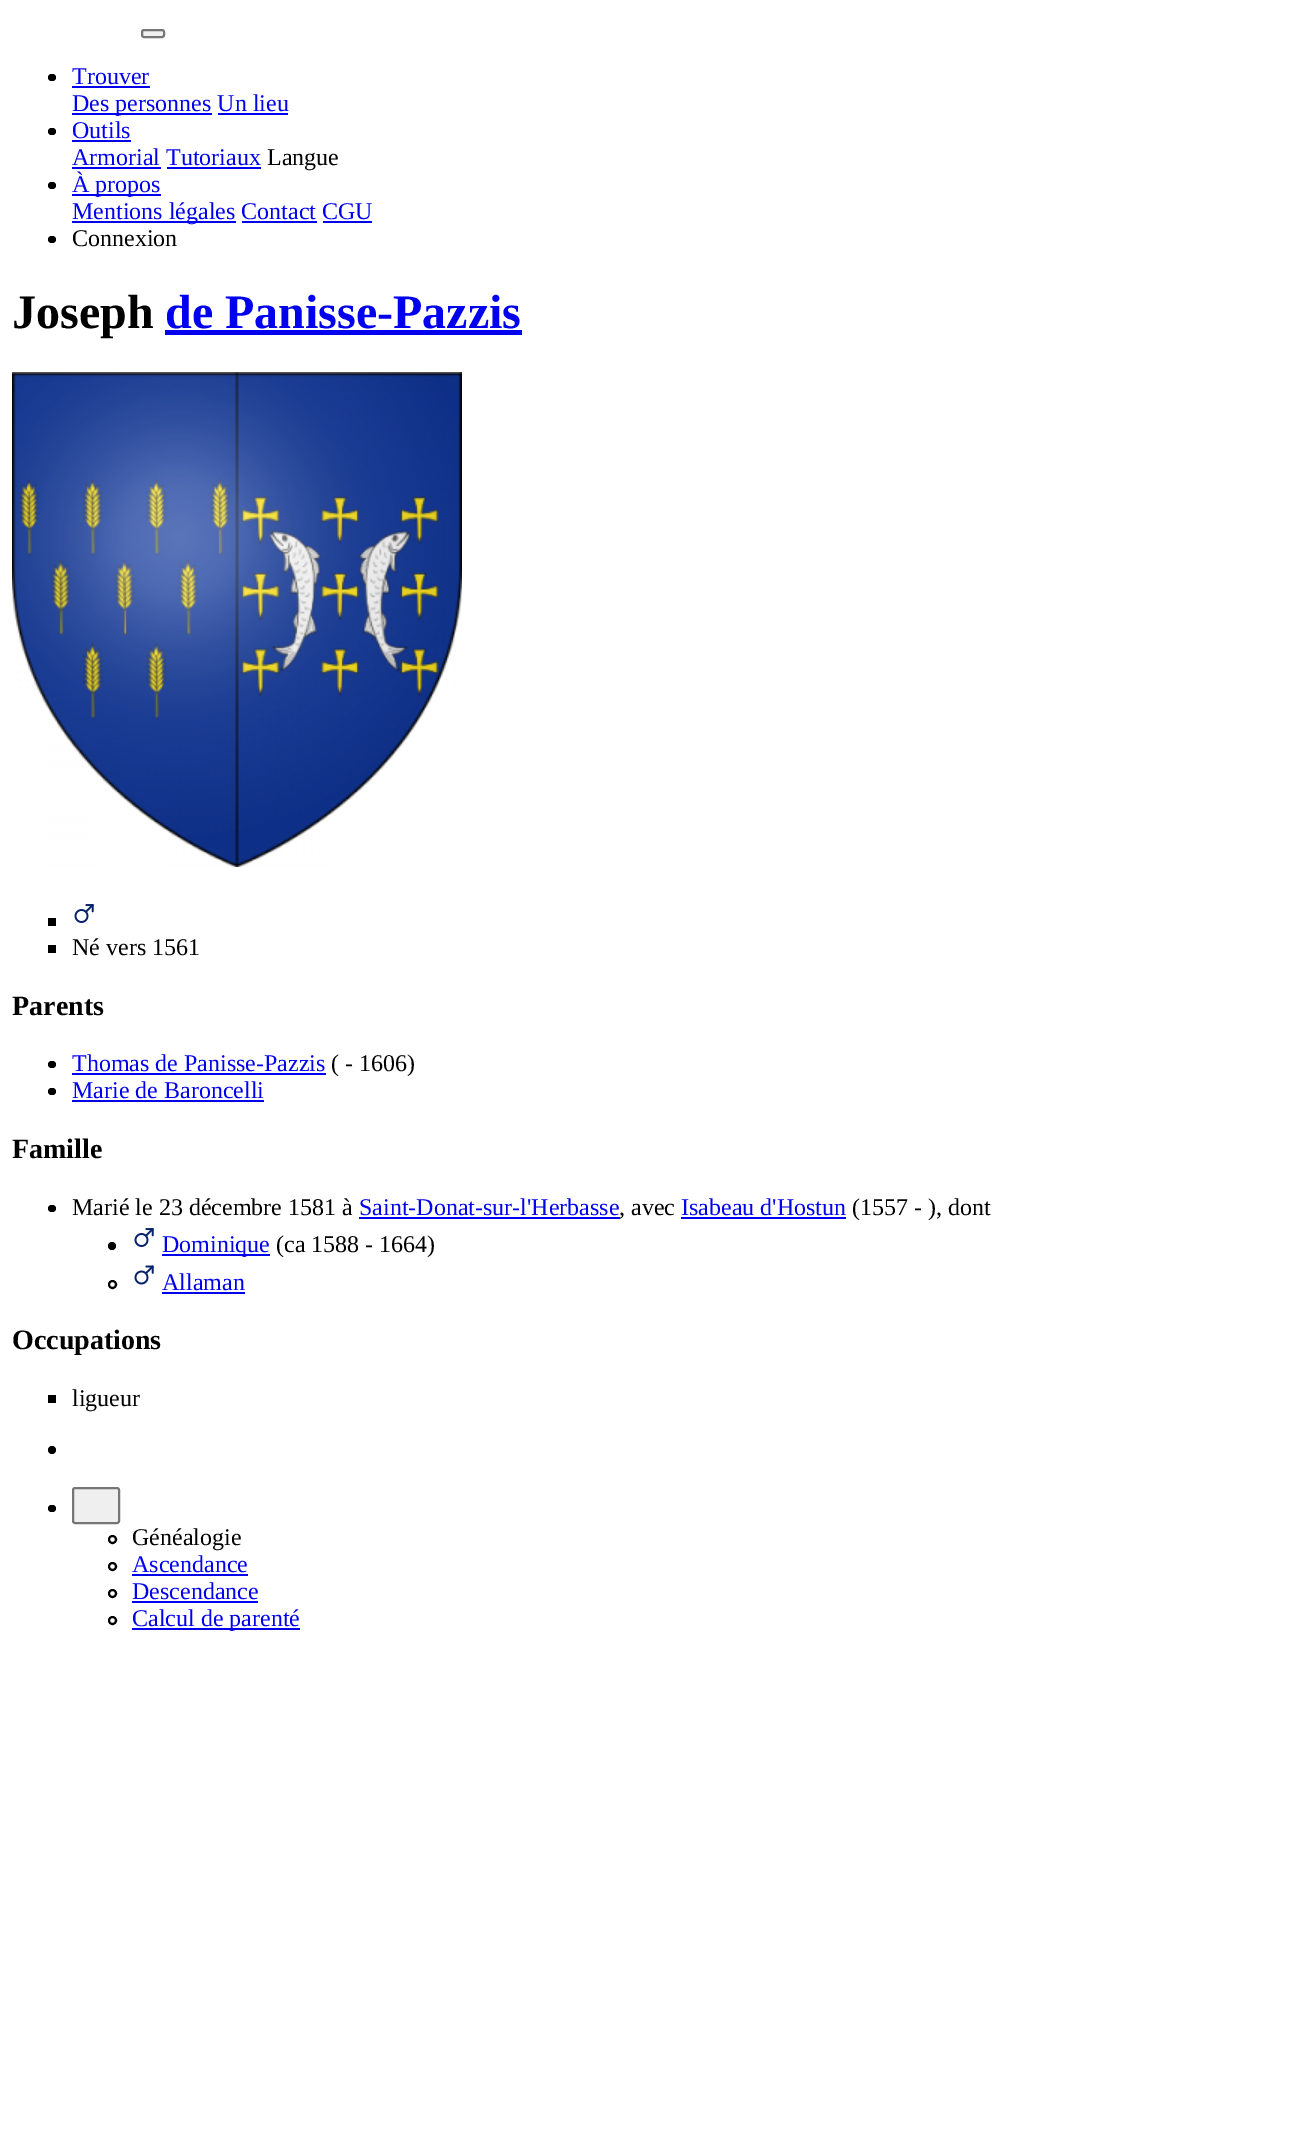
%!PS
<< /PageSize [1300 2136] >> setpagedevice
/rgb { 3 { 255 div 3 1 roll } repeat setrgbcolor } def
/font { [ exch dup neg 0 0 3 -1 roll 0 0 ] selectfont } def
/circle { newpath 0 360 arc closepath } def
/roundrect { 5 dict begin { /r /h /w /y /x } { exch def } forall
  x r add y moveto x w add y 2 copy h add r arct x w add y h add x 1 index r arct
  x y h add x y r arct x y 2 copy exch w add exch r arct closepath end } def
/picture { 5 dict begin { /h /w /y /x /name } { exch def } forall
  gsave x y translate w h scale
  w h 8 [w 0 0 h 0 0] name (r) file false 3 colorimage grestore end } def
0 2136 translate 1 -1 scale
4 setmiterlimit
255 255 255 rgb
0 0 1300 2136 rectfill
239 239 239 rgb
142 30 22 7 2 roundrect gsave fill grestore
118 118 118 rgb
2 setlinewidth
stroke
0 0 0 rgb
48 74 8 7 3.5 roundrect fill
[
  [72 86 78 2 0 0 238]
  [72 113 140 2 0 0 238]
  [218 113 70 2 0 0 238]
] { aload pop rgb rectfill } forall
0 0 0 rgb
48 128 8 7 3.5 roundrect fill
[
  [72 140 59 2 0 0 238]
  [72 167 89 2 0 0 238]
  [167 167 94 2 0 0 238]
] { aload pop rgb rectfill } forall
0 0 0 rgb
48 182 8 7 3.5 roundrect fill
[
  [72 194 89 2 0 0 238]
  [72 221 164 2 0 0 238]
  [242 221 75 2 0 0 238]
  [323 221 49 2 0 0 238]
] { aload pop rgb rectfill } forall
0 0 0 rgb
48 236 8 7 3.5 roundrect fill
0 0 238 rgb
165 330 357 5 rectfill
(img/1.rgb) 12 372 450 495 picture
0 0 0 rgb
48 918 8 8 rectfill
(img/2.rgb) 74 904 20 19 picture
48 945 8 8 rectfill
48 1061 8 7 3.5 roundrect fill
0 0 238 rgb
72 1073 254 2 rectfill
0 0 0 rgb
48 1088 8 7 3.5 roundrect fill
0 0 238 rgb
72 1100 192 2 rectfill
0 0 0 rgb
48 1205 8 7 3.5 roundrect fill
0 0 238 rgb
359 1217 261 2 rectfill
681 1217 165 2 rectfill
0 0 0 rgb
112 1246 4 circle fill
(img/2.rgb) 134 1228 20 19 picture
0 0 238 rgb
162 1254 108 2 rectfill
0 0 0 rgb
112.5 1284.5 3.5 circle stroke
(img/3.rgb) 134 1265 20 20 picture
0 0 238 rgb
162 1292 83 2 rectfill
0 0 0 rgb
48 1395 8 8 rectfill
52 1450 4 circle fill
48 1505 8 7 3.5 roundrect fill
239 239 239 rgb
73 1488 46 35 2 roundrect gsave fill grestore
118 118 118 rgb
stroke
0 0 0 rgb
112.5 1539.5 3.5 circle stroke
112.5 1566.5 3.5 circle stroke
0 0 238 rgb
132 1574 116 2 rectfill
0 0 0 rgb
112.5 1593.5 3.5 circle stroke
0 0 238 rgb
132 1601 126 2 rectfill
0 0 0 rgb
112.5 1620.5 3.5 circle stroke
0 0 238 rgb
132 1628 168 2 rectfill
/LiberationSerif-Regular 24 font
[
  [(Trouver) 72 84]
  [(Des personnes Un lieu) 72 111]
  [(Outils) 72 138]
  [(Armorial Tutoriaux) 72 165]
] { aload pop moveto show } forall
0 0 0 rgb
267 165 moveto (Langue) show
0 0 238 rgb
72 192 moveto (À propos) show
72 219 moveto (Mentions légales Contact CGU) show
0 0 0 rgb
72 246 moveto (Connexion) show
/LiberationSerif-Bold 48 font
12 328 moveto (Joseph) show
0 0 238 rgb
165 328 moveto (de Panisse-Pazzis) show
/LiberationSerif-Regular 24 font
0 0 0 rgb
72 955 moveto (Né vers 1561) show
/LiberationSerif-Bold 28 font
12 1015 moveto (Parents) show
/LiberationSerif-Regular 24 font
0 0 238 rgb
72 1071 moveto (Thomas de Panisse-Pazzis) show
0 0 0 rgb
331 1071 moveto (\( - 1606\)) show
0 0 238 rgb
72 1098 moveto (Marie de Baroncelli) show
/LiberationSerif-Bold 28 font
0 0 0 rgb
12 1158 moveto (Famille) show
/LiberationSerif-Regular 24 font
72 1215 moveto (Marié le 23 décembre 1581 à) show
0 0 238 rgb
359 1215 moveto (Saint-Donat-sur-l'Herbasse) show
0 0 0 rgb
619 1215 moveto (, avec) show
0 0 238 rgb
681 1215 moveto (Isabeau d'Hostun) show
0 0 0 rgb
852 1215 moveto (\(1557 - \), dont) show
0 0 238 rgb
162 1252 moveto (Dominique) show
0 0 0 rgb
276 1252 moveto (\(ca 1588 - 1664\)) show
0 0 238 rgb
162 1290 moveto (Allaman) show
/LiberationSerif-Bold 28 font
0 0 0 rgb
12 1349 moveto (Occupations) show
/LiberationSerif-Regular 24 font
72 1406 moveto (ligueur) show
132 1545 moveto (Généalogie) show
0 0 238 rgb
[
  [(Ascendance) 132 1572]
  [(Descendance) 132 1599]
  [(Calcul de parenté) 132 1626]
] { aload pop moveto show } forall
showpage
